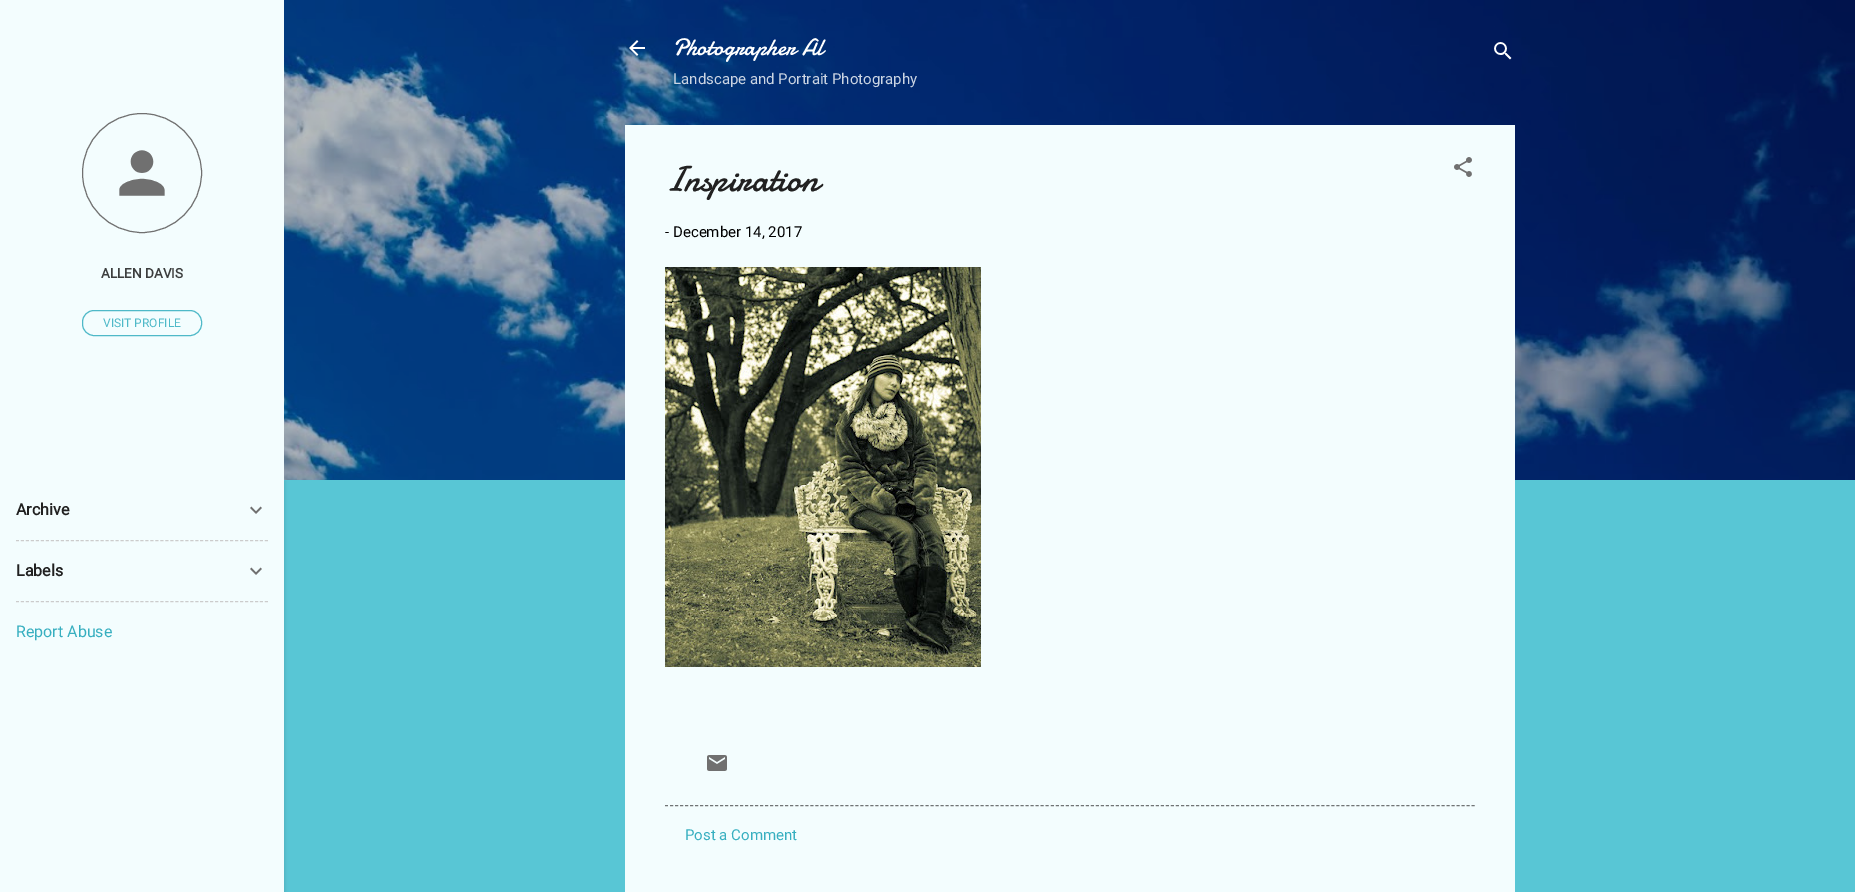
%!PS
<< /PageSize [1855 892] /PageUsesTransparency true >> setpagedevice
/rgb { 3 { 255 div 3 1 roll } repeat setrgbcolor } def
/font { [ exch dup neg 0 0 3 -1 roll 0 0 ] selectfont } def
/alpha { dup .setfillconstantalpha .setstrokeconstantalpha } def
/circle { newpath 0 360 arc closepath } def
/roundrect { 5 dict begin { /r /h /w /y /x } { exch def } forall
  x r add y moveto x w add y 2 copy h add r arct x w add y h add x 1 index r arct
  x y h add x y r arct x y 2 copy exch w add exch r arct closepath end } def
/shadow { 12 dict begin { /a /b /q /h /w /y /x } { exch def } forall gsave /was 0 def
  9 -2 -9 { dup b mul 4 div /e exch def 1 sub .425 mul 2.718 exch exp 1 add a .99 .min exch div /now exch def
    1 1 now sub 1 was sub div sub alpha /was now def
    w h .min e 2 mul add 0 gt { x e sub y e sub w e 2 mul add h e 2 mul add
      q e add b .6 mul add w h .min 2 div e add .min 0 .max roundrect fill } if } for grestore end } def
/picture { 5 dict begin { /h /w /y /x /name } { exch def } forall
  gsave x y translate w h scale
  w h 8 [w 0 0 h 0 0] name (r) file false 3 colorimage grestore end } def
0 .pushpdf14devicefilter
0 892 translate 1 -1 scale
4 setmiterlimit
88 198 213 rgb
0 0 1855 892 rectfill
(img/4.rgb) 284 0 1571 480 picture
0 0 0 rgb
1 481 284 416 0 1.5 0.1 shadow
243 253 254 rgb
0 0 284 892 rectfill
112 112 112 rgb
142 173 59.5 circle stroke
(img/1.rgb) 119 150 46 46 picture
79 185 200 rgb
82.5 310.5 119 25 11.5 roundrect stroke
(img/2.rgb) 250 506 12 8 picture
204 204 204 rgb
[3 1.98] 0 setdash
16 540.5 moveto 268 540.5 lineto stroke
(img/3.rgb) 250 567 12 8 picture
16 601.5 moveto 268 601.5 lineto stroke
(img/5.rgb) 629 40 16 16 picture
(img/6.rgb) 1494 42 18 18 picture
243 253 254 rgb
625 125 890 767 rectfill
(img/7.rgb) 1454 157 18 20 picture
(img/8.rgb) 665 267 316 400 picture
(img/9.rgb) 707 755 20 16 picture
112 116 117 rgb
[3 2.01] 0 setdash
665 805.5 moveto 1475 805.5 lineto stroke
/Roboto-Bold 13.5 font
60 62 62 rgb
101 278 moveto (ALLEN DAVIS) show
/Roboto-Regular 12 font
79 185 200 rgb
103 327 moveto (VISIT PROFILE) show
/Roboto-Bold 16 font
33 33 33 rgb
16 515 moveto (Archive) show
16 576 moveto (Labels) show
/Roboto-Regular 16 font
55 175 192 rgb
16 637 moveto (Report Abuse) show
/Damion-Regular 24 font
255 255 255 rgb
673 55 moveto (Photographer Al) show
/Roboto-Regular 15 font
204 213 227 rgb
673 84 moveto (Landscape and Portrait Photography) show
/Damion-Regular 36 font
33 33 33 rgb
665 191 moveto (Inspiration) show
/Roboto-Regular 15 font
0 0 0 rgb
665 237 moveto (- December 14, 2017) show
55 175 192 rgb
685 840 moveto (Post a Comment) show
.poppdf14devicefilter showpage
